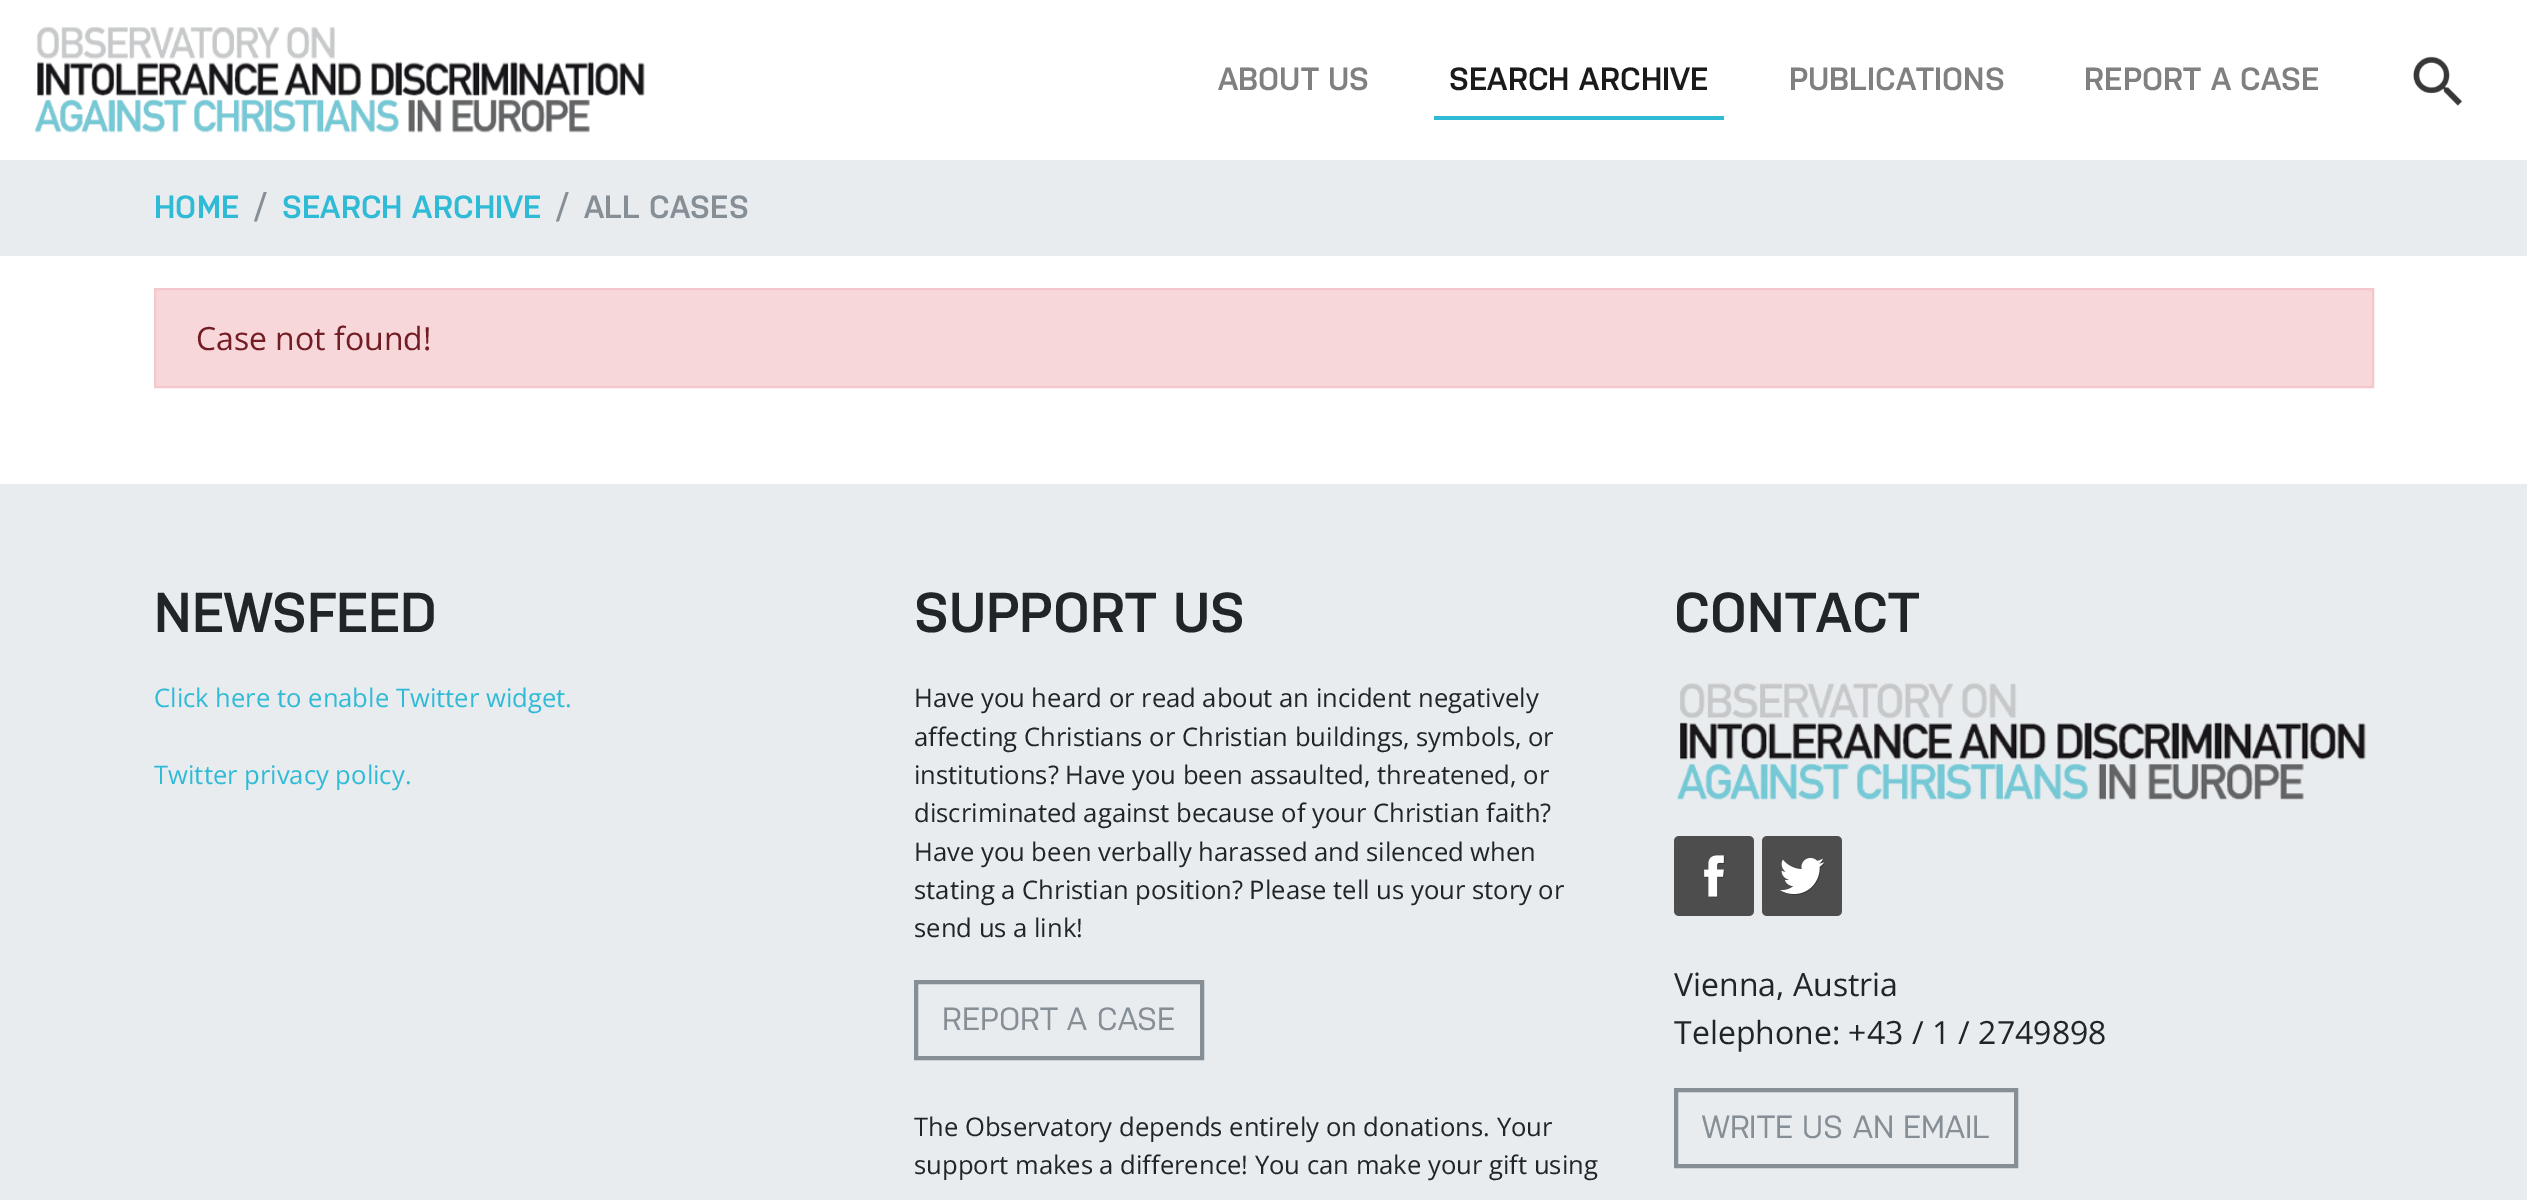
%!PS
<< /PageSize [2527 1200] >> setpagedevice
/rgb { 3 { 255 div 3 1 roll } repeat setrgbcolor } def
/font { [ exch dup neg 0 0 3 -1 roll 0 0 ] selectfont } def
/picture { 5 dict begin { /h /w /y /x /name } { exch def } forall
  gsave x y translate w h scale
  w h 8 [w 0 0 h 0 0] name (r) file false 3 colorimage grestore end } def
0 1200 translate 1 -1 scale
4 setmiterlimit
255 255 255 rgb
0 0 2527 1200 rectfill
(img/1.rgb) 35 27 610 106 picture
47 186 214 rgb
1434 116 290 4 rectfill
(img/2.rgb) 2413 56 50 50 picture
233 236 239 rgb
0 160 2527 96 rectfill
248 215 218 rgb
155 289 moveto 2373 289 lineto 2373 387 lineto 155 387 lineto closepath gsave fill grestore
245 198 203 rgb
2 setlinewidth
stroke
233 236 239 rgb
0 484 2527 716 rectfill
134 142 150 rgb
4 setlinewidth
916 982 286 76 rectstroke
(img/3.rgb) 1677 683 689 117 picture
(img/4.rgb) 1674 836 80 80 picture
(img/5.rgb) 1762 836 80 80 picture
1676 1090 340 76 rectstroke
/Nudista-SemiBold 32 font
128 128 128 rgb
1218 90 moveto (ABOUT US) show
26 26 26 rgb
1449 90 moveto (SEARCH ARCHIVE) show
128 128 128 rgb
1789 90 moveto (PUBLICATIONS) show
2084 90 moveto (REPORT A CASE) show
47 186 214 rgb
154 218 moveto (HOME) show
134 142 150 rgb
255 218 moveto (/) show
47 186 214 rgb
282 218 moveto (SEARCH ARCHIVE) show
134 142 150 rgb
557 218 moveto (/) show
584 218 moveto (ALL CASES) show
/OpenSans-Regular 32 font
114 28 36 rgb
196 350 moveto (Case not found!) show
/Nudista-SemiBold 56 font
33 37 41 rgb
154 632 moveto (NEWSFEED) show
/OpenSans-Regular 25.6 font
47 186 214 rgb
154 707 moveto (Click here to enable Twitter widget.) show
154 784 moveto (Twitter privacy policy.) show
/Nudista-SemiBold 56 font
33 37 41 rgb
914 632 moveto (SUPPORT US) show
/OpenSans-Regular 25.6 font
[
  [(Have you heard or read about an incident negatively) 914 707]
  [(affecting Christians or Christian buildings, symbols, or) 914 746]
  [(institutions? Have you been assaulted, threatened, or) 914 784]
  [(discriminated against because of your Christian faith?) 914 822]
  [(Have you been verbally harassed and silenced when) 914 861]
  [(stating a Christian position? Please tell us your story or) 914 899]
  [(send us a link!) 914 937]
] { aload pop moveto show } forall
/Nudista-Medium 32 font
134 142 150 rgb
942 1030 moveto (REPORT A CASE) show
/OpenSans-Regular 25.6 font
33 37 41 rgb
914 1136 moveto (The Observatory depends entirely on donations. Your) show
914 1174 moveto (support makes a difference! You can make your gift using) show
/Nudista-SemiBold 56 font
1674 632 moveto (CONTACT) show
/OpenSans-Regular 32 font
1674 996 moveto (Vienna, Austria) show
1674 1044 moveto (Telephone: +43 / 1 / 2749898) show
/Nudista-Medium 32 font
134 142 150 rgb
1702 1138 moveto (WRITE US AN EMAIL) show
showpage
